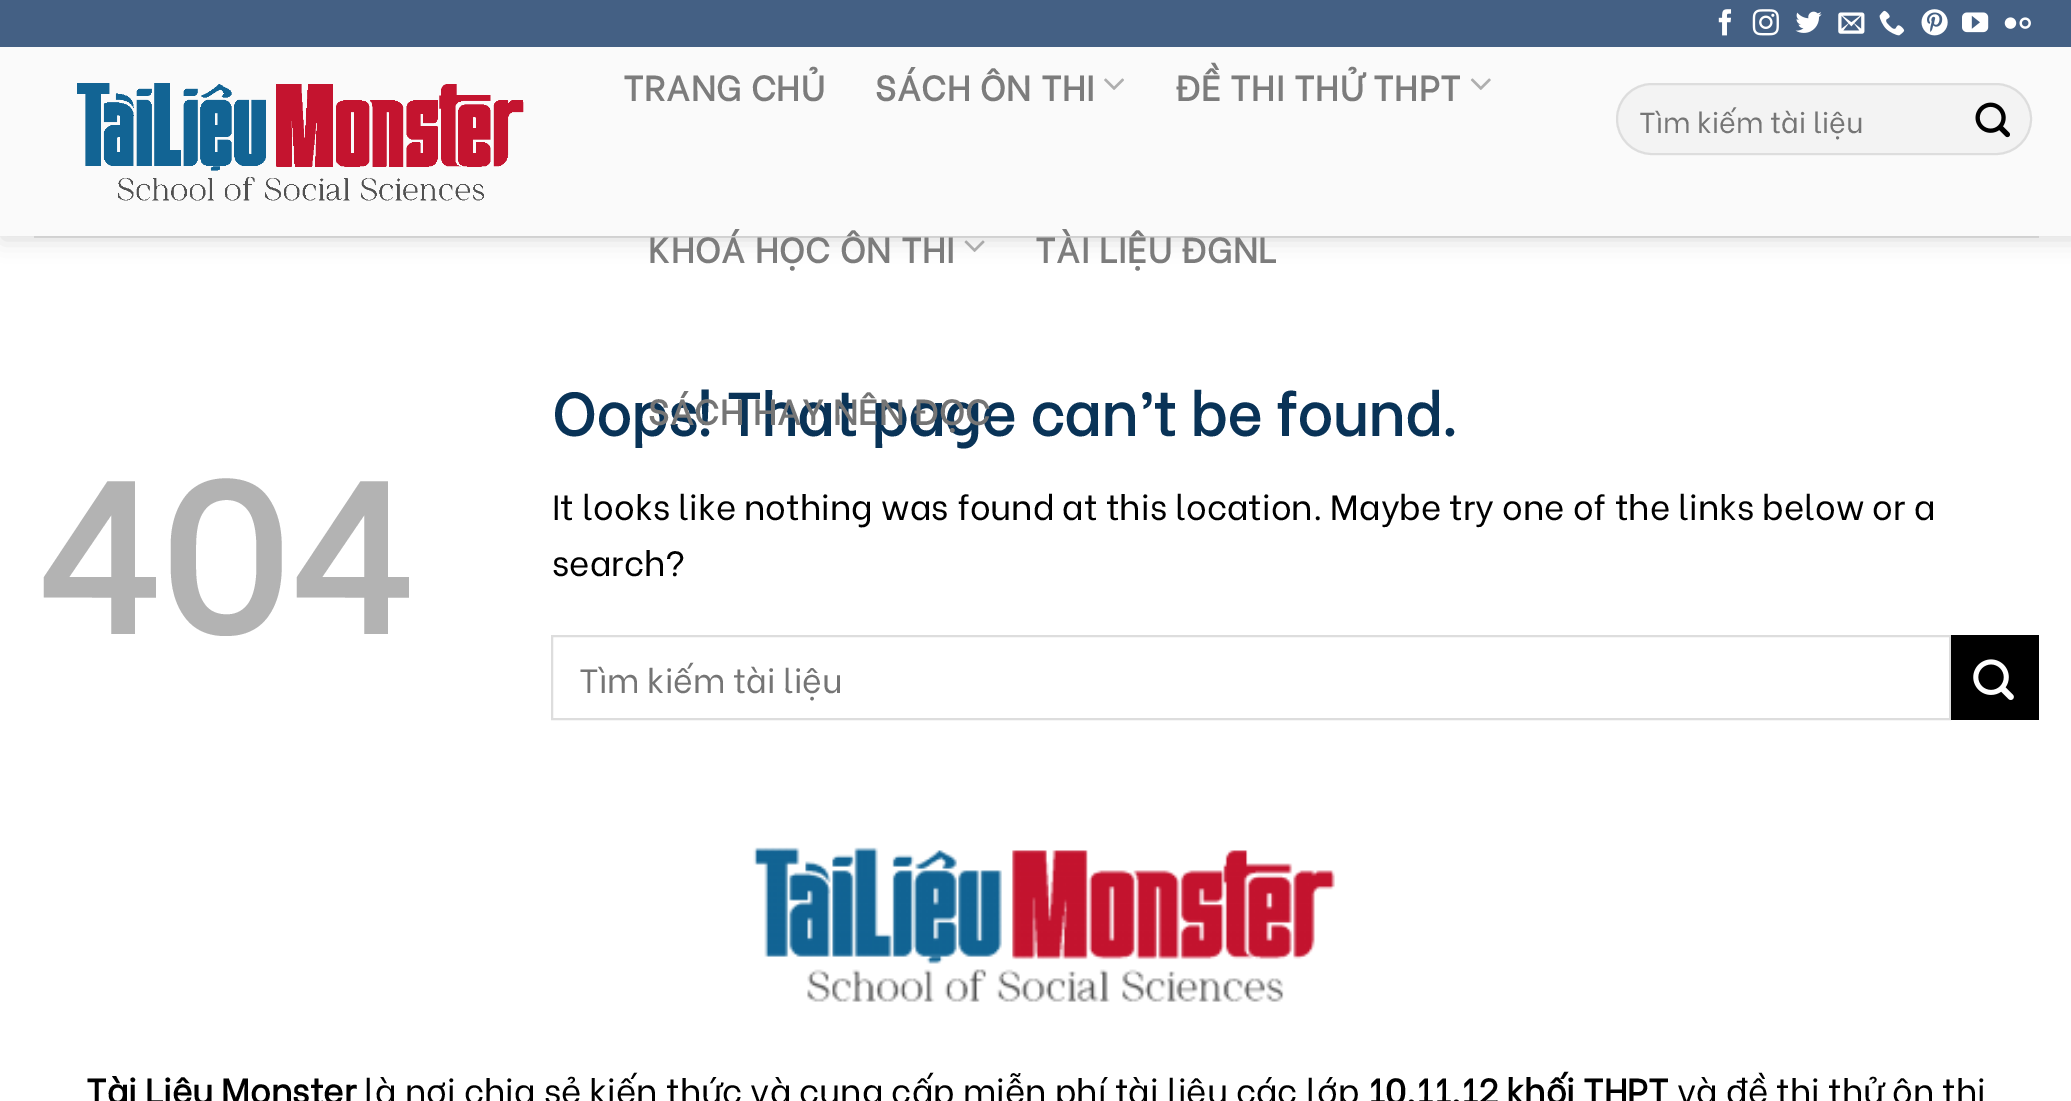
%!PS
<< /PageSize [2071 1101] /PageUsesTransparency true >> setpagedevice
/rgb { 3 { 255 div 3 1 roll } repeat setrgbcolor } def
/font { [ exch dup neg 0 0 3 -1 roll 0 0 ] selectfont } def
/alpha { dup .setfillconstantalpha .setstrokeconstantalpha } def
/roundrect { 5 dict begin { /r /h /w /y /x } { exch def } forall
  x r add y moveto x w add y 2 copy h add r arct x w add y h add x 1 index r arct
  x y h add x y r arct x y 2 copy exch w add exch r arct closepath end } def
/shadow { 12 dict begin { /a /b /q /h /w /y /x } { exch def } forall gsave /was 0 def
  9 -2 -9 { dup b mul 4 div /e exch def 1 sub .425 mul 2.718 exch exp 1 add a .99 .min exch div /now exch def
    1 1 now sub 1 was sub div sub alpha /was now def
    w h .min e 2 mul add 0 gt { x e sub y e sub w e 2 mul add h e 2 mul add
      q e add b .6 mul add w h .min 2 div e add .min 0 .max roundrect fill } if } for grestore end } def
/picture { 5 dict begin { /h /w /y /x /name } { exch def } forall
  gsave x y translate w h scale
  w h 8 [w 0 0 h 0 0] name (r) file false 3 colorimage grestore end } def
0 .pushpdf14devicefilter
0 1101 translate 1 -1 scale
4 setmiterlimit
255 255 255 rgb
0 0 2071 1101 rectfill
0 0 0 rgb
2 2 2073 237 0 11 0.15 shadow
250 250 250 rgb
0 47 2071 189 rectfill
68 96 132 rgb
0 0 2071 47 rectfill
(img/1.rgb) 1718 9 14 27 picture
(img/2.rgb) 1752 9 27 27 picture
(img/3.rgb) 1795 11 27 22 picture
(img/4.rgb) 1838 12 27 22 picture
(img/5.rgb) 1879 10 26 26 picture
(img/6.rgb) 1921 9 27 27 picture
(img/7.rgb) 1962 12 27 21 picture
(img/8.rgb) 2004 17 27 12 picture
(img/9.rgb) 77 83 447 118 picture
(img/10.rgb) 1104 78 20 12 picture
(img/11.rgb) 1470 78 21 12 picture
(img/12.rgb) 964 240 21 12 picture
243 243 243 rgb
1616 83 416 72 36 roundrect fill
0.09 alpha
0 0 0 rgb
2 setlinewidth
1617 84 414 70 35 roundrect stroke
1 alpha
(img/13.rgb) 1975 102 35 36 picture
0.1 alpha
34 236 2005 2 rectfill
1 alpha
221 221 221 rgb
552 636 1398 83 rectstroke
0 0 0 rgb
1951 635 88 85 rectfill
(img/14.rgb) 1973 659 41 41 picture
(img/15.rgb) 753 847 582 155 picture
/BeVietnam-Bold 34.9 font
124 124 124 rgb
623 101 moveto 0.75 0 (TRANG CHỦ) ashow
875 101 moveto 0.75 0 (SÁCH ÔN THI) ashow
1175 101 moveto 0.75 0 (ĐỀ THI THỬ THPT) ashow
648 263 moveto 0.75 0 (KHOÁ HỌC ÔN THI) ashow
1035 263 moveto 0.75 0 (TÀI LIỆU ĐGNL) ashow
/BeVietnam-Regular 28.75 font
117 117 117 rgb
1639 133 moveto (Tìm kiếm tài liệu) show
/BeVietnam-Bold 210 font
179 179 179 rgb
34 634 moveto (404) show
/BeVietnam-Bold 59.4 font
9 51 87 rgb
552 436 moveto (Oops! That page can’t be found.) show
/BeVietnam-Bold 34.9 font
117 117 117 rgb
648 425 moveto 0.75 0 (SÁCH HAY NÊN ĐỌC) ashow
/BeVietnam-Regular 34.9 font
0 0 0 rgb
552 520 moveto (It looks like nothing was found at this location. Maybe try one of the links below or a) show
552 576 moveto (search?) show
/BeVietnam-Regular 33.75 font
117 117 117 rgb
579 693 moveto (Tìm kiếm tài liệu) show
/BeVietnam-Bold 34.9 font
0 0 0 rgb
86 1104 moveto (Tài Liệu Monster) show
/BeVietnam-Regular 34.9 font
364 1104 moveto (là nơi chia sẻ kiến thức và cung cấp miễn phí tài liệu các lớp) show
/BeVietnam-Bold 34.9 font
1368 1104 moveto (10,11,12 khối THPT) show
/BeVietnam-Regular 34.9 font
1677 1104 moveto (và đề thi thử ôn thi) show
.poppdf14devicefilter showpage
